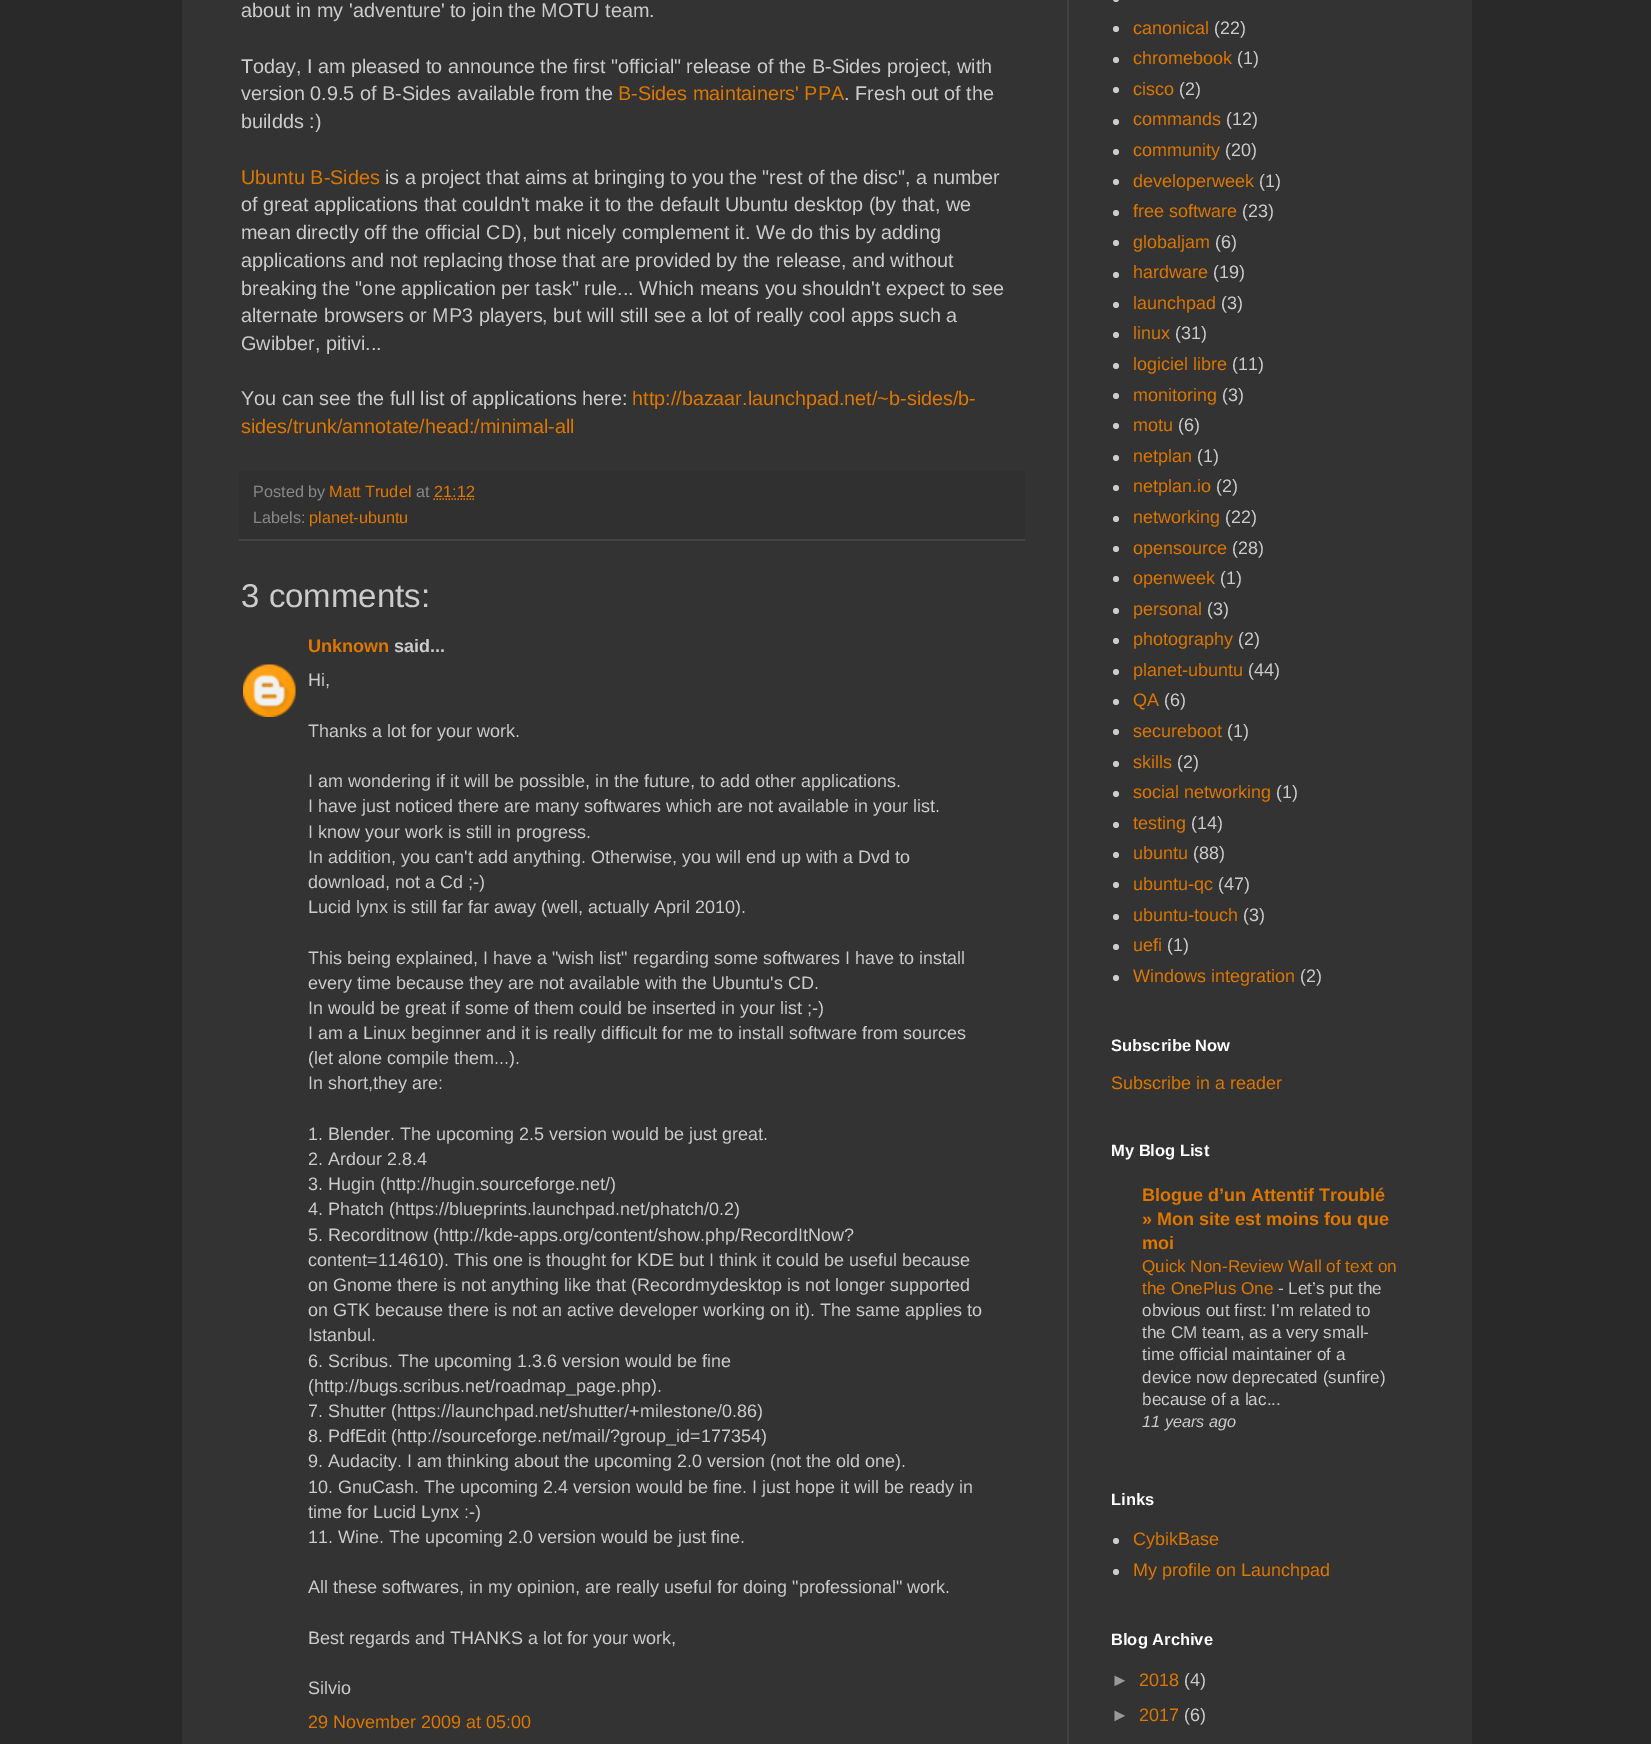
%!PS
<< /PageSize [1651 1744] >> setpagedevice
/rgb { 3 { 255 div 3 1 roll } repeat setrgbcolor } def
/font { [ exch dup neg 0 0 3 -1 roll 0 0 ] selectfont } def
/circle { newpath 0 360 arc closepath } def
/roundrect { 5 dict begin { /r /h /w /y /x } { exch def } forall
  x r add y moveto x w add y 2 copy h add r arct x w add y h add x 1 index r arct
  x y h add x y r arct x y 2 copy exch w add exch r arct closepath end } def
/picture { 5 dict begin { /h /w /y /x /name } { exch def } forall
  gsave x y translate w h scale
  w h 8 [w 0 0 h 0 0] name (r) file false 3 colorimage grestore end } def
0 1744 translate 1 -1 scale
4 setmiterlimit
41 41 41 rgb
0 0 1651 1744 rectfill
[
  [182 0 1290 1744 51 51 51]
  [1067 0 2 1744 64 64 64]
  [239 471 786 68 48 48 48]
  [239 539 786 2 68 68 68]
] { aload pop rgb rectfill } forall
221 119 0 rgb
1.5 setlinewidth
[1.5 1.5] 0 setdash
433.5 499 moveto 474.5 499 lineto stroke
(img/1.rgb) 243 664 53 53 picture
204 204 204 rgb
1113 -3 6 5 3 roundrect fill
1116 29 3 circle fill
1116 60 3 circle fill
1116 90 3 circle fill
1116 122 3 circle fill
1116 152 3 circle fill
1116 182 3 circle fill
1116 213 3 circle fill
1116 243 3 circle fill
1116 275 3 circle fill
1116 305 3 circle fill
1116 335 3 circle fill
1116 366 3 circle fill
1116 396 3 circle fill
1116 426 3 circle fill
1116 458 3 circle fill
1116 488 3 circle fill
1116 519 3 circle fill
1116 549 3 circle fill
1116 579 3 circle fill
1116 611 3 circle fill
1116 641 3 circle fill
1116 672 3 circle fill
1116 702 3 circle fill
1116 732 3 circle fill
1116 764 3 circle fill
1116 794 3 circle fill
1116 825 3 circle fill
1116 855 3 circle fill
1116 885 3 circle fill
1116 917 3 circle fill
1116 947 3 circle fill
1116 978 3 circle fill
1116 1541 3 circle fill
1116 1572 3 circle fill
/LiberationSans-Regular 19.8 font
[
  [(about in my 'adventure' to join the MOTU team.) 241 17]
  [(Today, I am pleased to announce the first "official" release of the B-Sides project, with) 241 73]
  [(version 0.9.5 of B-Sides available from the) 241 100]
] { aload pop moveto show } forall
221 119 0 rgb
618 100 moveto (B-Sides maintainers' PPA) show
204 204 204 rgb
844 100 moveto (. Fresh out of the) show
241 128 moveto (buildds :\)) show
221 119 0 rgb
241 184 moveto (Ubuntu B-Sides) show
204 204 204 rgb
[
  [(is a project that aims at bringing to you the "rest of the disc", a number) 385 184]
  [(of great applications that couldn't make it to the default Ubuntu desktop \(by that, we) 241 211]
  [(mean directly off the official CD\), but nicely complement it. We do this by adding) 241 239]
  [(applications and not replacing those that are provided by the release, and without) 241 267]
  [(breaking the "one application per task" rule... Which means you shouldn't expect to see) 241 295]
  [(alternate browsers or MP3 players, but will still see a lot of really cool apps such a) 241 322]
  [(Gwibber, pitivi...) 241 350]
  [(You can see the full list of applications here:) 241 405]
] { aload pop moveto show } forall
221 119 0 rgb
632 405 moveto (http://bazaar.launchpad.net/~b-sides/b-) show
241 433 moveto (sides/trunk/annotate/head:/minimal-all) show
/LiberationSans-Regular 16.25 font
136 136 136 rgb
253 497 moveto (Posted by) show
221 119 0 rgb
329 497 moveto (Matt Trudel) show
136 136 136 rgb
416 497 moveto (at) show
221 119 0 rgb
434 497 moveto (21:12) show
136 136 136 rgb
253 523 moveto (Labels:) show
221 119 0 rgb
309 523 moveto (planet-ubuntu) show
/LiberationSans-Regular 33 font
204 204 204 rgb
241 607 moveto (3 comments:) show
/LiberationSans-Bold 18 font
221 119 0 rgb
308 652 moveto (Unknown) show
204 204 204 rgb
394 652 moveto (said...) show
/LiberationSans-Regular 18 font
[
  [(Hi,) 308 686]
  [(Thanks a lot for your work.) 308 737]
  [(I am wondering if it will be possible, in the future, to add other applications.) 308 787]
  [(I have just noticed there are many softwares which are not available in your list.) 308 812]
  [(I know your work is still in progress.) 308 838]
  [(In addition, you can't add anything. Otherwise, you will end up with a Dvd to) 308 863]
  [(download, not a Cd ;-\)) 308 888]
  [(Lucid lynx is still far far away \(well, actually April 2010\).) 308 913]
  [(This being explained, I have a "wish list" regarding some softwares I have to install) 308 964]
  [(every time because they are not available with the Ubuntu's CD.) 308 989]
  [(In would be great if some of them could be inserted in your list ;-\)) 308 1014]
  [(I am a Linux beginner and it is really difficult for me to install software from sources) 308 1039]
  [(\(let alone compile them...\).) 308 1064]
  [(In short,they are:) 308 1089]
  [(1. Blender. The upcoming 2.5 version would be just great.) 308 1140]
  [(2. Ardour 2.8.4) 308 1165]
  [(3. Hugin \(http://hugin.sourceforge.net/\)) 308 1190]
  [(4. Phatch \(https://blueprints.launchpad.net/phatch/0.2\)) 308 1215]
  [(5. Recorditnow \(http://kde-apps.org/content/show.php/RecordItNow?) 308 1241]
  [(content=114610\). This one is thought for KDE but I think it could be useful because) 308 1266]
  [(on Gnome there is not anything like that \(Recordmydesktop is not longer supported) 308 1291]
  [(on GTK because there is not an active developer working on it\). The same applies to) 308 1316]
  [(Istanbul.) 308 1341]
  [(6. Scribus. The upcoming 1.3.6 version would be fine) 308 1367]
  [(\(http://bugs.scribus.net/roadmap_page.php\).) 308 1392]
  [(7. Shutter \(https://launchpad.net/shutter/+milestone/0.86\)) 308 1417]
  [(8. PdfEdit \(http://sourceforge.net/mail/?group_id=177354\)) 308 1442]
  [(9. Audacity. I am thinking about the upcoming 2.0 version \(not the old one\).) 308 1467]
  [(10. GnuCash. The upcoming 2.4 version would be fine. I just hope it will be ready in) 308 1493]
  [(time for Lucid Lynx :-\)) 308 1518]
  [(11. Wine. The upcoming 2.0 version would be just fine.) 308 1543]
  [(All these softwares, in my opinion, are really useful for doing "professional" work.) 308 1593]
  [(Best regards and THANKS a lot for your work,) 308 1644]
  [(Silvio) 308 1694]
] { aload pop moveto show } forall
221 119 0 rgb
308 1728 moveto (29 November 2009 at 05:00) show
1133 34 moveto (canonical) show
204 204 204 rgb
1214 34 moveto (\(22\)) show
221 119 0 rgb
1133 64 moveto (chromebook) show
204 204 204 rgb
1237 64 moveto (\(1\)) show
221 119 0 rgb
1133 95 moveto (cisco) show
204 204 204 rgb
1179 95 moveto (\(2\)) show
221 119 0 rgb
1133 125 moveto (commands) show
204 204 204 rgb
1226 125 moveto (\(12\)) show
221 119 0 rgb
1133 156 moveto (community) show
204 204 204 rgb
1225 156 moveto (\(20\)) show
221 119 0 rgb
1133 187 moveto (developerweek) show
204 204 204 rgb
1259 187 moveto (\(1\)) show
221 119 0 rgb
1133 217 moveto (free software) show
204 204 204 rgb
1242 217 moveto (\(23\)) show
221 119 0 rgb
1133 248 moveto (globaljam) show
204 204 204 rgb
1215 248 moveto (\(6\)) show
221 119 0 rgb
1133 278 moveto (hardware) show
204 204 204 rgb
1213 278 moveto (\(19\)) show
221 119 0 rgb
1133 309 moveto (launchpad) show
204 204 204 rgb
1221 309 moveto (\(3\)) show
221 119 0 rgb
1133 339 moveto (linux) show
204 204 204 rgb
1175 339 moveto (\(31\)) show
221 119 0 rgb
1133 370 moveto (logiciel libre) show
204 204 204 rgb
1232 370 moveto (\(11\)) show
221 119 0 rgb
1133 401 moveto (monitoring) show
204 204 204 rgb
1222 401 moveto (\(3\)) show
221 119 0 rgb
1133 431 moveto (motu) show
204 204 204 rgb
1178 431 moveto (\(6\)) show
221 119 0 rgb
1133 462 moveto (netplan) show
204 204 204 rgb
1197 462 moveto (\(1\)) show
221 119 0 rgb
1133 492 moveto (netplan.io) show
204 204 204 rgb
1216 492 moveto (\(2\)) show
221 119 0 rgb
1133 523 moveto (networking) show
204 204 204 rgb
1225 523 moveto (\(22\)) show
221 119 0 rgb
1133 554 moveto (opensource) show
204 204 204 rgb
1232 554 moveto (\(28\)) show
221 119 0 rgb
1133 584 moveto (openweek) show
204 204 204 rgb
1220 584 moveto (\(1\)) show
221 119 0 rgb
1133 615 moveto (personal) show
204 204 204 rgb
1207 615 moveto (\(3\)) show
221 119 0 rgb
1133 645 moveto (photography) show
204 204 204 rgb
1238 645 moveto (\(2\)) show
221 119 0 rgb
1133 676 moveto (planet-ubuntu) show
204 204 204 rgb
1248 676 moveto (\(44\)) show
221 119 0 rgb
1133 706 moveto (QA) show
204 204 204 rgb
1164 706 moveto (\(6\)) show
221 119 0 rgb
1133 737 moveto (secureboot) show
204 204 204 rgb
1227 737 moveto (\(1\)) show
221 119 0 rgb
1133 768 moveto (skills) show
204 204 204 rgb
1177 768 moveto (\(2\)) show
221 119 0 rgb
1133 798 moveto (social networking) show
204 204 204 rgb
1276 798 moveto (\(1\)) show
221 119 0 rgb
1133 829 moveto (testing) show
204 204 204 rgb
1191 829 moveto (\(14\)) show
221 119 0 rgb
1133 859 moveto (ubuntu) show
204 204 204 rgb
1193 859 moveto (\(88\)) show
221 119 0 rgb
1133 890 moveto (ubuntu-qc) show
204 204 204 rgb
1218 890 moveto (\(47\)) show
221 119 0 rgb
1133 921 moveto (ubuntu-touch) show
204 204 204 rgb
1243 921 moveto (\(3\)) show
221 119 0 rgb
1133 951 moveto (uefi) show
204 204 204 rgb
1167 951 moveto (\(1\)) show
221 119 0 rgb
1133 982 moveto (Windows integration) show
204 204 204 rgb
1300 982 moveto (\(2\)) show
/LiberationSans-Bold 16.5 font
255 255 255 rgb
1111 1051 moveto (Subscribe Now) show
/LiberationSans-Regular 18 font
221 119 0 rgb
1111 1089 moveto (Subscribe in a reader) show
/LiberationSans-Bold 16.5 font
255 255 255 rgb
1111 1156 moveto (My Blog List) show
/LiberationSans-Bold 18 font
221 119 0 rgb
[
  [(Blogue d’un Attentif Troublé) 1142 1201]
  [(» Mon site est moins fou que) 1142 1225]
  [(moi) 1142 1249]
] { aload pop moveto show } forall
/LiberationSans-Regular 17.1 font
1142 1272 moveto (Quick Non-Review Wall of text on) show
1142 1294 moveto (the OnePlus One) show
204 204 204 rgb
[
  [(- Let’s put the) 1278 1294]
  [(obvious out first: I’m related to) 1142 1316]
  [(the CM team, as a very small-) 1142 1338]
  [(time official maintainer of a) 1142 1360]
  [(device now deprecated \(sunfire\)) 1142 1383]
  [(because of a lac...) 1142 1405]
] { aload pop moveto show } forall
/LiberationSans-Italic 16.25 font
1142 1427 moveto (11 years ago) show
/LiberationSans-Bold 16.5 font
255 255 255 rgb
1111 1505 moveto (Links) show
/LiberationSans-Regular 18 font
221 119 0 rgb
1133 1545 moveto (CybikBase) show
1133 1576 moveto (My profile on Launchpad) show
/LiberationSans-Bold 16.5 font
255 255 255 rgb
1111 1645 moveto (Blog Archive) show
/LiberationSans-Regular 18 font
153 153 153 rgb
1111 1686 moveto (►) show
221 119 0 rgb
1139 1686 moveto (2018) show
204 204 204 rgb
1184 1686 moveto (\(4\)) show
153 153 153 rgb
1111 1721 moveto (►) show
221 119 0 rgb
1139 1721 moveto (2017) show
204 204 204 rgb
1184 1721 moveto (\(6\)) show
showpage
